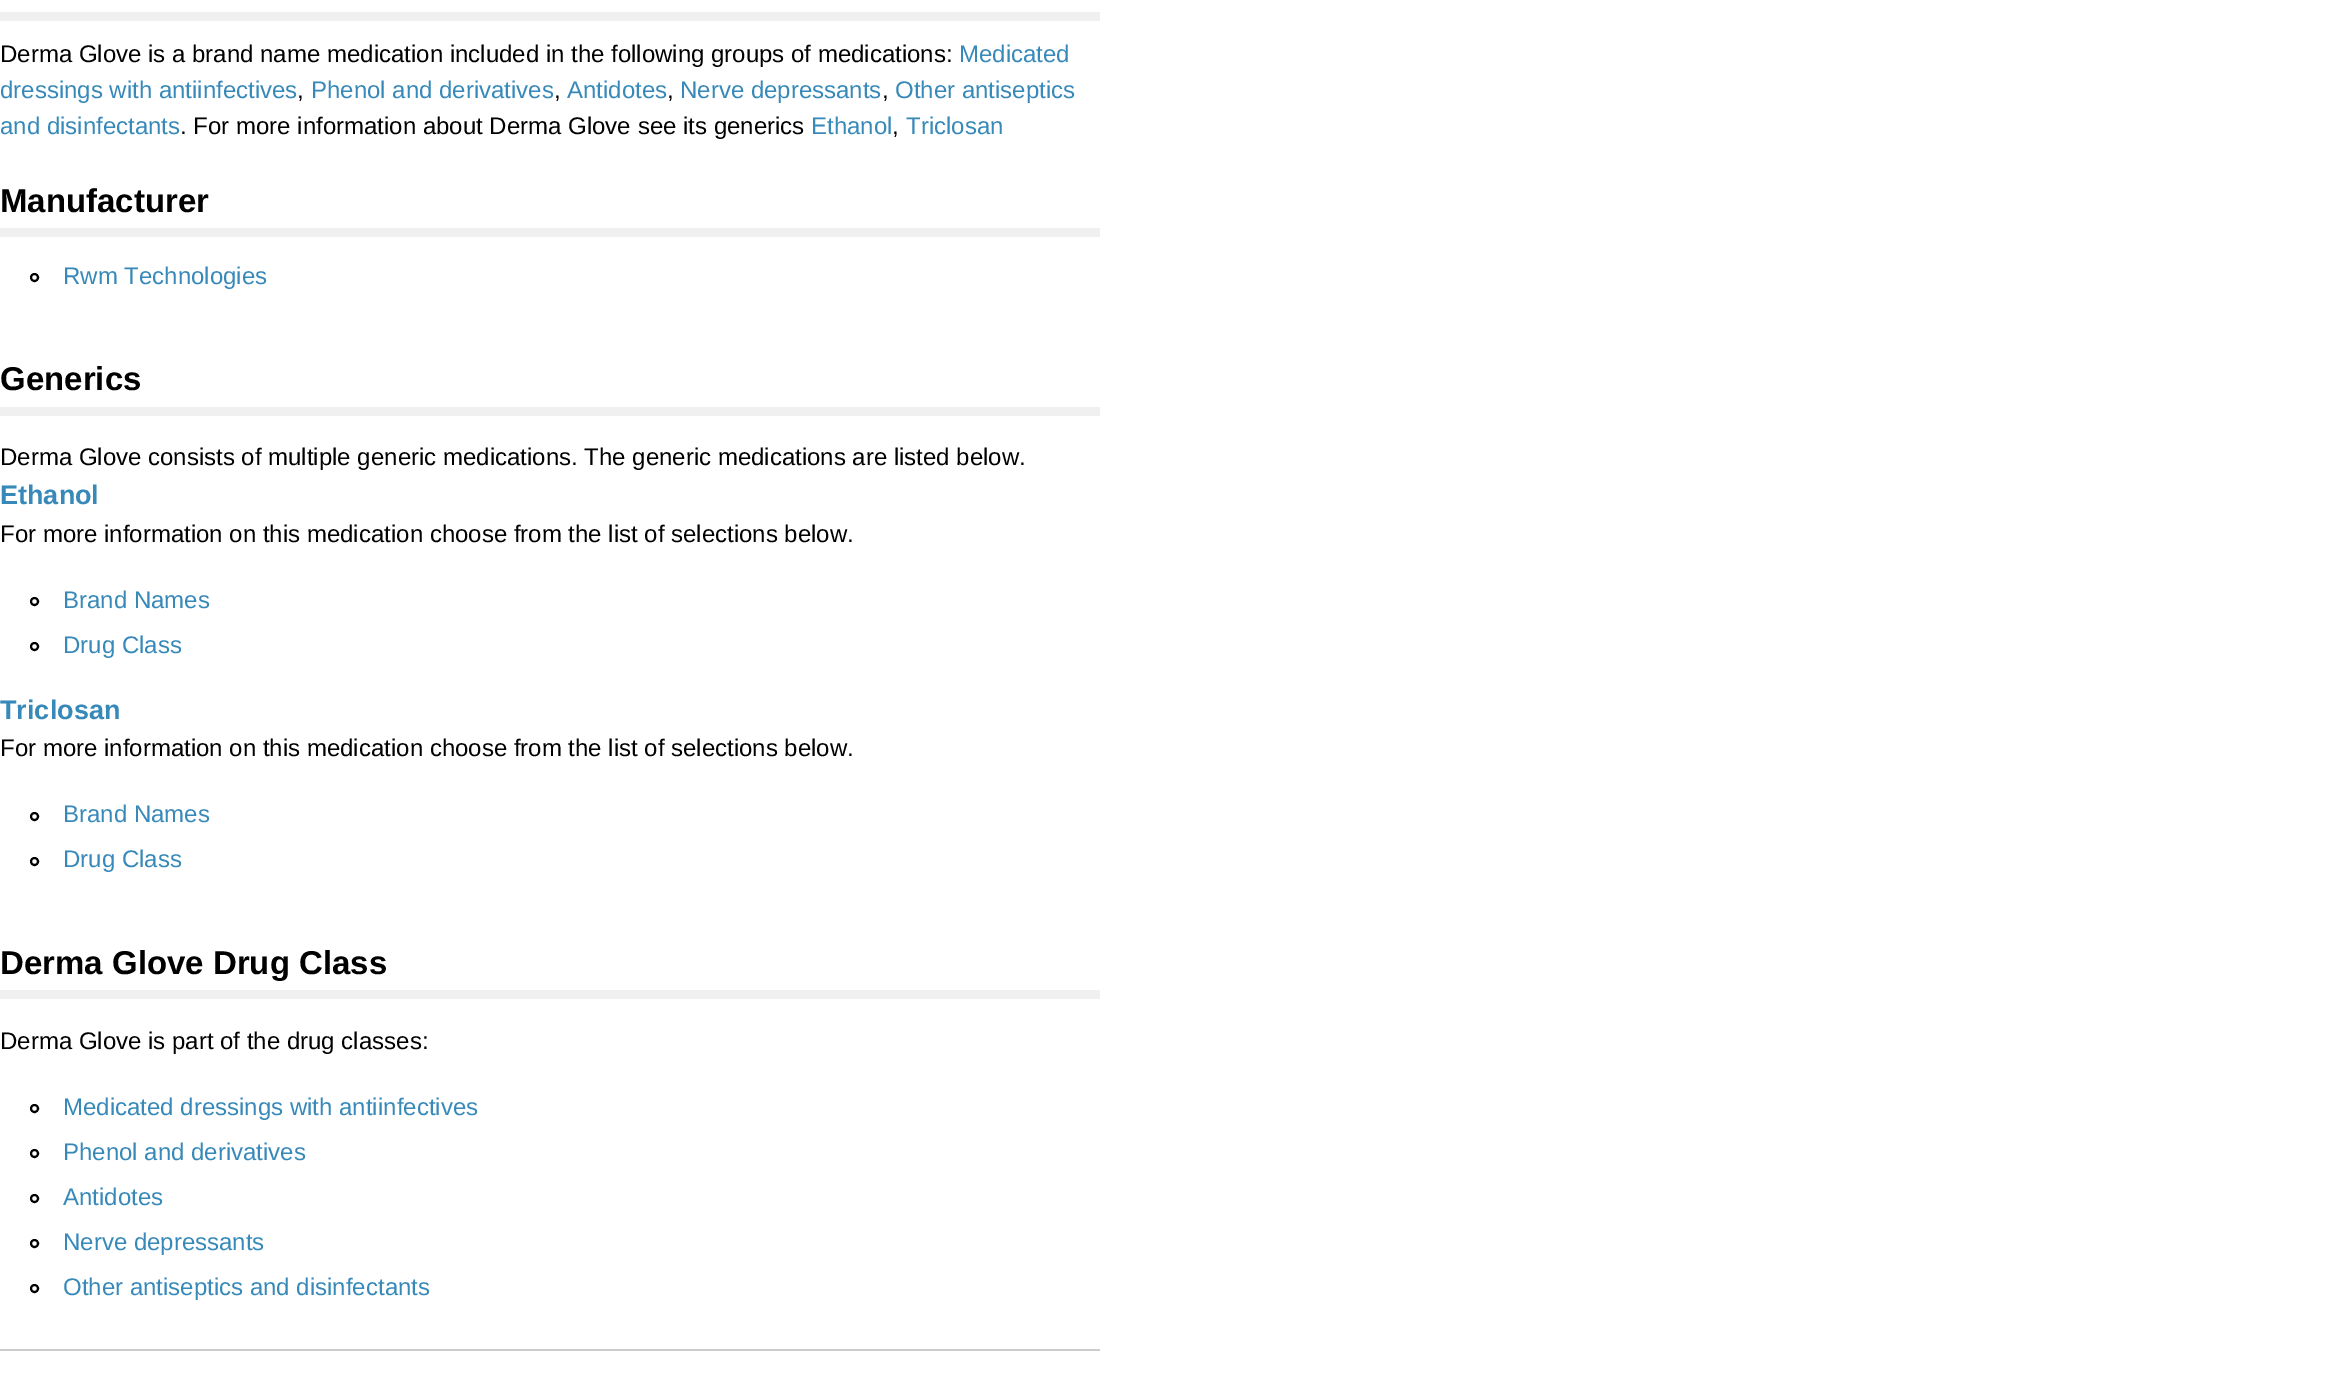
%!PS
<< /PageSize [2337 1390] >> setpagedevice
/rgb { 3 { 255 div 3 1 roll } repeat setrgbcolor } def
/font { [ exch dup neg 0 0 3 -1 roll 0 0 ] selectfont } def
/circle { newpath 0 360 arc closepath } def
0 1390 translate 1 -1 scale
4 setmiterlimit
255 255 255 rgb
0 0 2337 1390 rectfill
240 240 240 rgb
0 12 1100 9 rectfill
0 228 1100 9 rectfill
0 0 0 rgb
2 setlinewidth
34.5 277.5 3.5 circle stroke
240 240 240 rgb
0 407 1100 9 rectfill
0 0 0 rgb
34.5 601.5 3.5 circle stroke
34.5 646.5 3.5 circle stroke
34.5 816.5 3.5 circle stroke
34.5 861.5 3.5 circle stroke
240 240 240 rgb
0 990 1100 9 rectfill
0 0 0 rgb
34.5 1108.5 3.5 circle stroke
34.5 1153.5 3.5 circle stroke
34.5 1198.5 3.5 circle stroke
34.5 1243.5 3.5 circle stroke
34.5 1288.5 3.5 circle stroke
204 204 204 rgb
0 1349 1100 2 rectfill
/LiberationSans-Regular 24 font
0 0 0 rgb
0 62 moveto (Derma Glove is a brand name medication included in the following groups of medications:) show
55 137 185 rgb
959 62 moveto (Medicated) show
0 98 moveto (dressings with antiinfectives) show
0 0 0 rgb
297 98 moveto (,) show
55 137 185 rgb
311 98 moveto (Phenol and derivatives) show
0 0 0 rgb
554 98 moveto (,) show
55 137 185 rgb
567 98 moveto (Antidotes) show
0 0 0 rgb
667 98 moveto (,) show
55 137 185 rgb
680 98 moveto (Nerve depressants) show
0 0 0 rgb
882 98 moveto (,) show
55 137 185 rgb
895 98 moveto (Other antiseptics) show
0 134 moveto (and disinfectants) show
0 0 0 rgb
180 134 moveto (. For more information about Derma Glove see its generics) show
55 137 185 rgb
811 134 moveto (Ethanol) show
0 0 0 rgb
892 134 moveto (,) show
55 137 185 rgb
906 134 moveto (Triclosan) show
/LiberationSans-Bold 33 font
0 0 0 rgb
0 212 moveto (Manufacturer) show
/LiberationSans-Regular 24 font
55 137 185 rgb
63 284 moveto (Rwm Technologies) show
/LiberationSans-Bold 33 font
0 0 0 rgb
0 390 moveto (Generics) show
/LiberationSans-Regular 24 font
0 465 moveto (Derma Glove consists of multiple generic medications. The generic medications are listed below.) show
/LiberationSans-Bold 27 font
55 137 185 rgb
0 504 moveto (Ethanol) show
/LiberationSans-Regular 24 font
0 0 0 rgb
0 542 moveto (For more information on this medication choose from the list of selections below.) show
55 137 185 rgb
63 608 moveto (Brand Names) show
63 653 moveto (Drug Class) show
/LiberationSans-Bold 27 font
0 719 moveto (Triclosan) show
/LiberationSans-Regular 24 font
0 0 0 rgb
0 756 moveto (For more information on this medication choose from the list of selections below.) show
55 137 185 rgb
63 822 moveto (Brand Names) show
63 867 moveto (Drug Class) show
/LiberationSans-Bold 33 font
0 0 0 rgb
0 974 moveto (Derma Glove Drug Class) show
/LiberationSans-Regular 24 font
0 1049 moveto (Derma Glove is part of the drug classes:) show
55 137 185 rgb
[
  [(Medicated dressings with antiinfectives) 63 1115]
  [(Phenol and derivatives) 63 1160]
  [(Antidotes) 63 1205]
  [(Nerve depressants) 63 1250]
  [(Other antiseptics and disinfectants) 63 1295]
] { aload pop moveto show } forall
showpage
